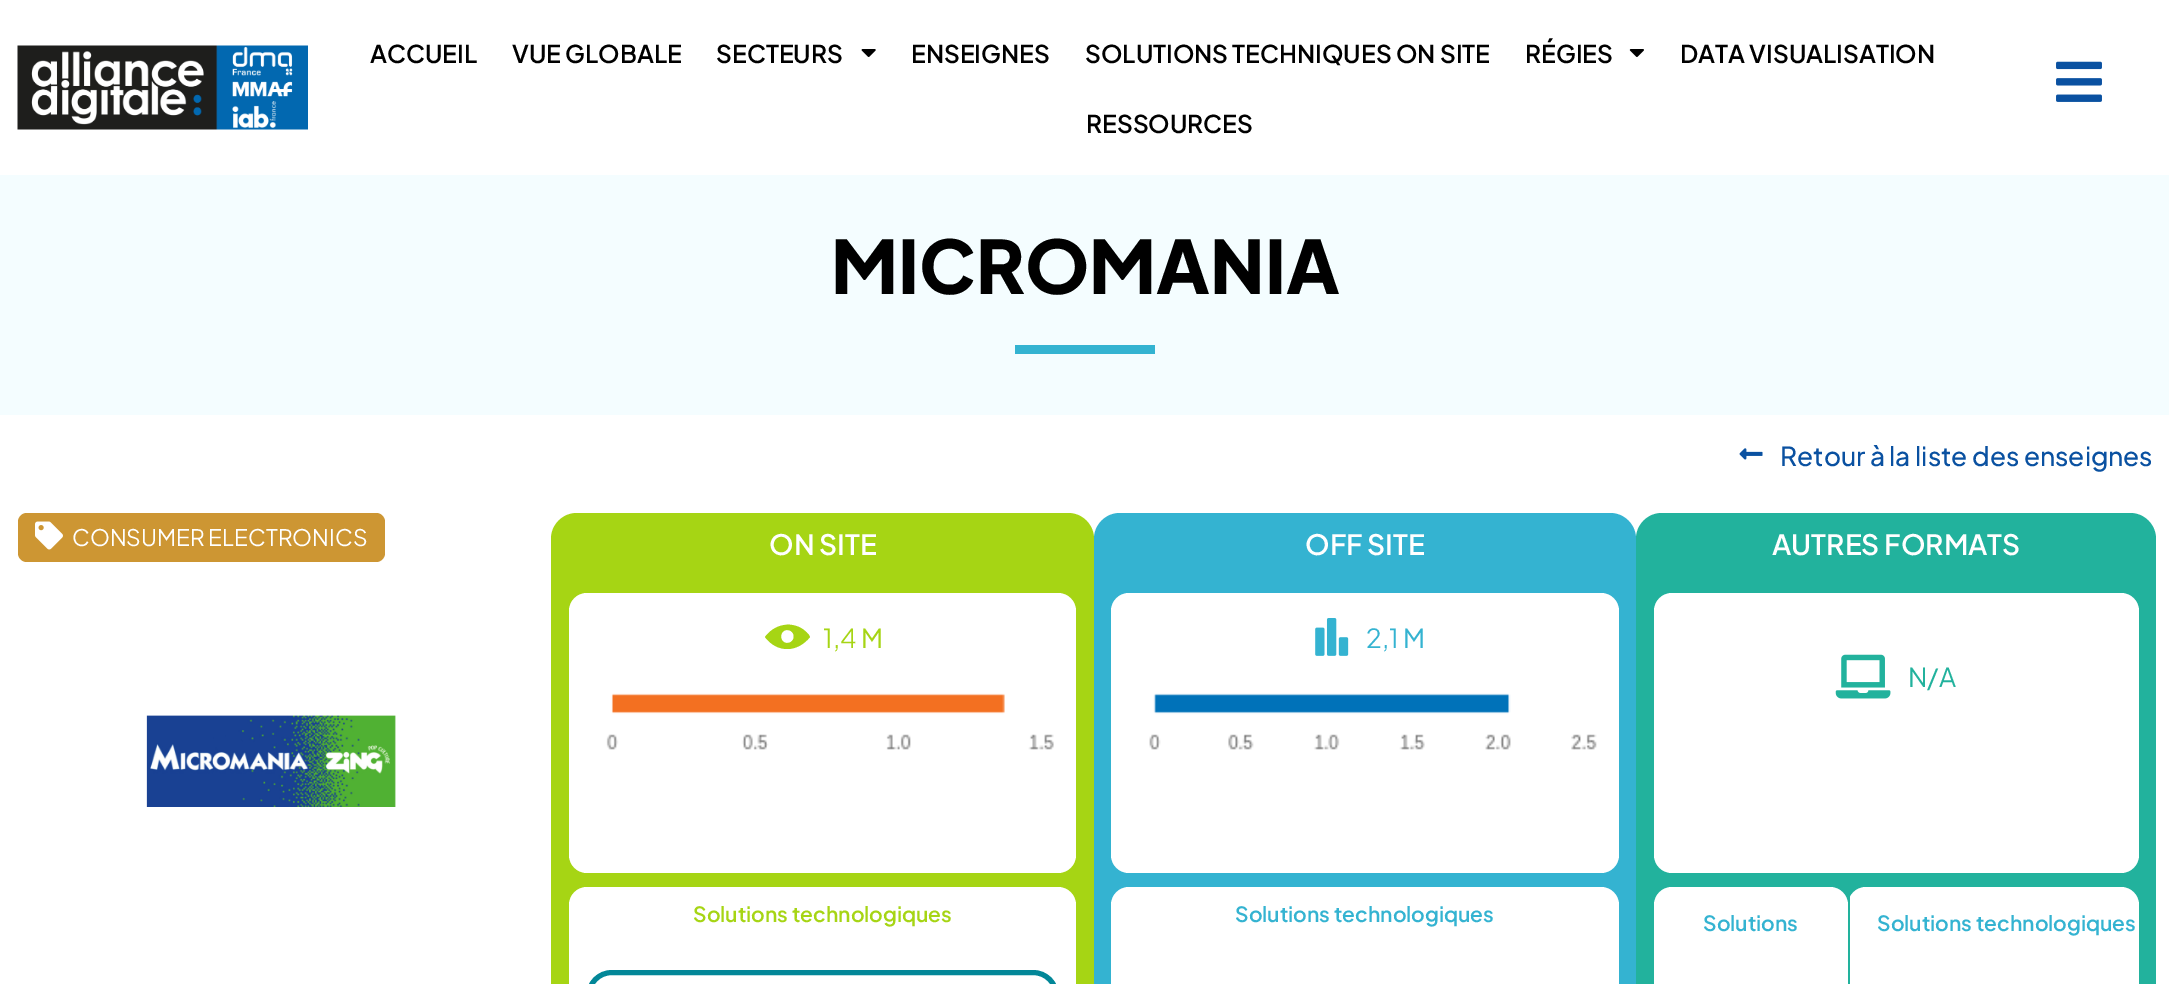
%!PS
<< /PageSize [2169 984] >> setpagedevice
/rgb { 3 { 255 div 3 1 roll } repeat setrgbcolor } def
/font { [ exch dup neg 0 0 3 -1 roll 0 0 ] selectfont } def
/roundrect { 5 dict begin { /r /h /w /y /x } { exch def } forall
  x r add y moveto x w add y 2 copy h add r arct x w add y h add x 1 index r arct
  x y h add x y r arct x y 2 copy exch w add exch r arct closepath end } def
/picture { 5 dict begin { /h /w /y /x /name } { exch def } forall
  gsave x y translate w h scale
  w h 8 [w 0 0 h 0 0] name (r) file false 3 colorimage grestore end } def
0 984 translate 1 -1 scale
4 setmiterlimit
255 255 255 rgb
0 0 2169 984 rectfill
(img/1.rgb) 17 45 291 85 picture
(img/2.rgb) 861 49 15 8 picture
(img/3.rgb) 1629 49 15 8 picture
(img/4.rgb) 2056 61 46 41 picture
244 253 255 rgb
0 175 2169 240 rectfill
52 179 209 rgb
1015 345 140 9 rectfill
(img/5.rgb) 1739 448 24 12 picture
205 150 51 rgb
18 513 367 49 9 roundrect fill
(img/6.rgb) 35 521 28 29 picture
(img/7.rgb) 146 715 250 92 picture
166 213 20 rgb
551 513 543 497 26 roundrect fill
255 255 255 rgb
569 593 507 280 18 roundrect fill
166 213 20 rgb
809 635 moveto 797 620 776 622 765 637 curveto 777 653 797 653 810 637 curveto closepath 787 643 moveto 779 643 779 630 787 630 curveto 796 630 796 643 787 643 curveto closepath eofill
(img/8.rgb) 606 693 448 57 picture
255 255 255 rgb
569 887 507 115 18 roundrect fill
2 135 152 rgb
5 setlinewidth
588.5 972.5 468 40 23.5 roundrect stroke
52 179 209 rgb
1094 513 542 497 26 roundrect fill
255 255 255 rgb
1111 593 508 280 18 roundrect fill
(img/9.rgb) 1315 618 34 38 picture
(img/10.rgb) 1149 693 448 57 picture
1111 887 508 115 18 roundrect fill
34 178 157 rgb
1636 513 520 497 26 roundrect fill
255 255 255 rgb
1654 593 485 280 18 roundrect fill
(img/11.rgb) 1835 654 56 45 picture
1654 887 194 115 18 roundrect fill
1848 887 291 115 18 roundrect fill
34 178 157 rgb
1848 896 2 88 rectfill
/PlusJakartaSans-SemiBold 24.5 font
0 0 0 rgb
[
  [(ACCUEIL) 370 63]
  [(VUE GLOBALE) 512 63]
  [(SECTEURS) 716 63]
  [(ENSEIGNES) 911 63]
  [(SOLUTIONS TECHNIQUES ON SITE) 1085 63]
  [(RÉGIES) 1525 63]
  [(DATA VISUALISATION) 1680 63]
  [(RESSOURCES) 1086 133]
] { aload pop moveto show } forall
/PlusJakartaSans-ExtraBold 73.5 font
831 294 moveto (MICROMANIA) show
/PlusJakartaSans-Medium 26.25 font
10 81 161 rgb
1780 466 moveto (Retour à la liste des enseignes) show
/PlusJakartaSans-Regular 22.75 font
255 255 255 rgb
72 546 moveto (CONSUMER ELECTRONICS) show
/PlusJakartaSans-SemiBold 28 font
769 555 moveto (ON SITE) show
/PlusJakartaSans-Regular 26.25 font
166 213 20 rgb
823 648 moveto (1,4 M) show
/PlusJakartaSans-SemiBold 21 font
693 922 moveto (Solutions technologiques) show
/PlusJakartaSans-SemiBold 28 font
255 255 255 rgb
1305 555 moveto (OFF SITE) show
/PlusJakartaSans-Regular 26.25 font
52 179 209 rgb
1366 648 moveto (2,1 M) show
/PlusJakartaSans-SemiBold 21 font
1235 922 moveto (Solutions technologiques) show
/PlusJakartaSans-SemiBold 28 font
255 255 255 rgb
1772 555 moveto (AUTRES FORMATS) show
/PlusJakartaSans-Regular 26.25 font
34 178 157 rgb
1908 687 moveto (N/A) show
/PlusJakartaSans-SemiBold 21 font
52 179 209 rgb
1703 931 moveto (Solutions) show
1877 931 moveto (Solutions technologiques) show
showpage
